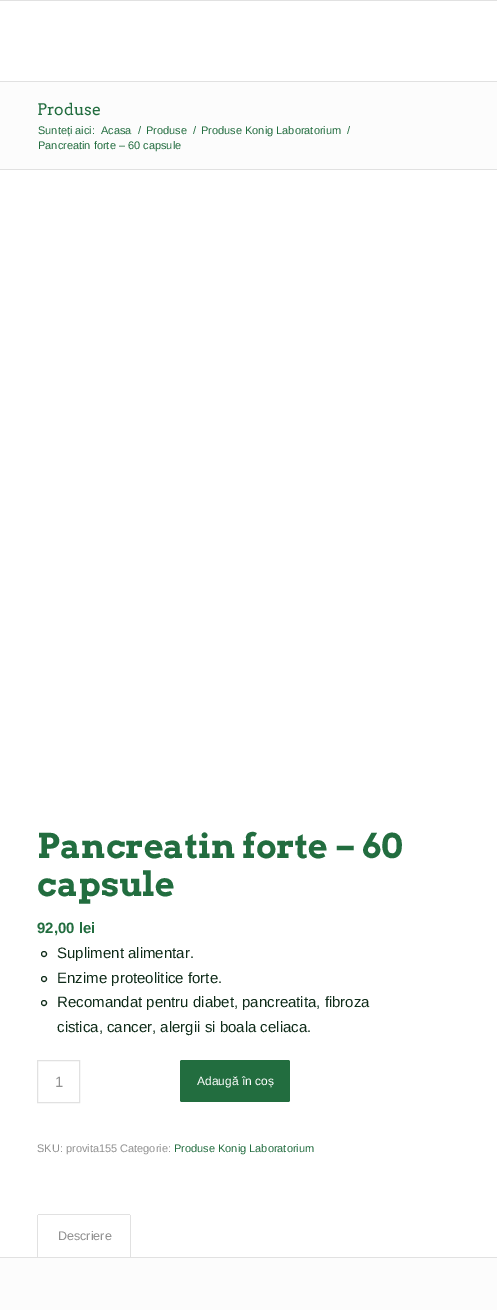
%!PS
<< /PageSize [497 1310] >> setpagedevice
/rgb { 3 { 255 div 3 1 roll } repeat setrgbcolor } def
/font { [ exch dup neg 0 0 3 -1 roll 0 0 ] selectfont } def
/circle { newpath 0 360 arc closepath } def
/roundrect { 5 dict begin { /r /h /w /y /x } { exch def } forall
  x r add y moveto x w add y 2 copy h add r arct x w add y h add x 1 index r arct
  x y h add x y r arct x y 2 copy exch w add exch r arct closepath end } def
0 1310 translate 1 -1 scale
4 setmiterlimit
255 255 255 rgb
0 0 497 1310 rectfill
[
  [0 0 497 1 225 225 225]
  [0 81 497 1 225 225 225]
  [0 82 497 87 252 252 252]
  [0 169 497 1 225 225 225]
] { aload pop rgb rectfill } forall
15 43 25 rgb
44 954 2.5 circle stroke
44 979 2.5 circle stroke
44 1003 2.5 circle stroke
225 225 225 rgb
37.5 1060.5 42 42 rectstroke
34 109 63 rgb
180 1060 110 42 2 roundrect fill
[
  [38 1214 92 1 225 225 225]
  [130 1215 1 42 225 225 225]
  [37 1215 1 42 225 225 225]
  [0 1258 497 52 252 252 252]
  [0 1257 497 1 225 225 225]
] { aload pop rgb rectfill } forall
/Arvo-Regular 16 font
34 109 63 rgb
37 115 moveto (Produse) show
/LiberationSans-Regular 11 font
[
  [(Sunteți aici:) 38 134]
  [(Acasa) 101 134]
  [(/) 138 134]
  [(Produse) 146 134]
  [(/) 193 134]
  [(Produse Konig Laboratorium) 201 134]
  [(/) 347 134]
  [(Pancreatin forte – 60 capsule) 38 149]
] { aload pop moveto show } forall
/Arvo-Bold 34 font
37 858 moveto (Pancreatin forte – 60) show
37 896 moveto (capsule) show
/LiberationSans-Bold 15 font
37 933 moveto (92,00 lei) show
/LiberationSans-Regular 15 font
15 43 25 rgb
[
  [(Supliment alimentar.) 57 958]
  [(Enzime proteolitice forte.) 57 983]
  [(Recomandat pentru diabet, pancreatita, fibroza) 57 1007]
  [(cistica, cancer, alergii si boala celiaca.) 57 1032]
] { aload pop moveto show } forall
145 145 145 rgb
55 1087 moveto (1) show
/LiberationSans-Regular 12 font
255 255 255 rgb
197 1085 moveto (Adaugă în coș) show
/LiberationSans-Regular 11 font
145 145 145 rgb
37 1152 moveto (SKU: provita155 Categorie:) show
34 109 63 rgb
174 1152 moveto (Produse Konig Laboratorium) show
/LiberationSans-Regular 12.5 font
145 145 145 rgb
58 1240 moveto (Descriere) show
showpage
